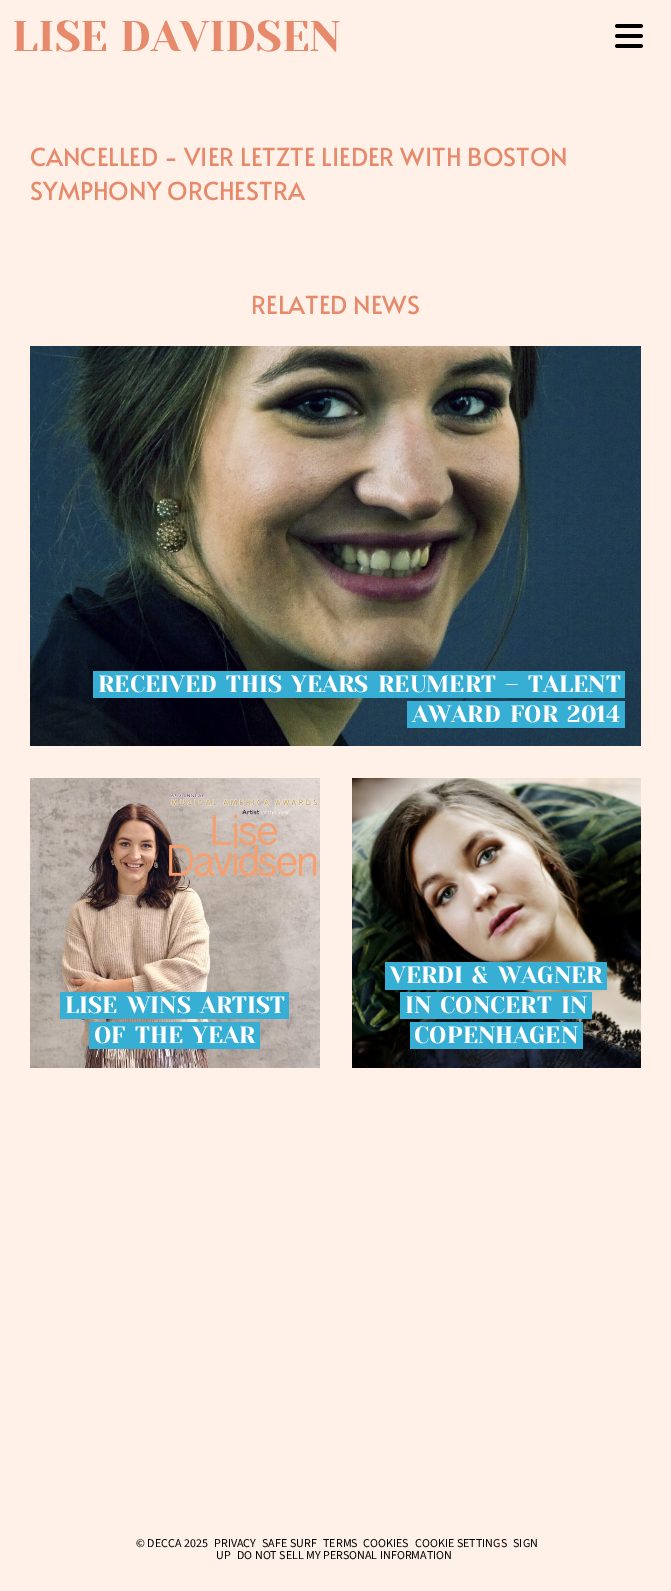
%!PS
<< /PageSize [671 1591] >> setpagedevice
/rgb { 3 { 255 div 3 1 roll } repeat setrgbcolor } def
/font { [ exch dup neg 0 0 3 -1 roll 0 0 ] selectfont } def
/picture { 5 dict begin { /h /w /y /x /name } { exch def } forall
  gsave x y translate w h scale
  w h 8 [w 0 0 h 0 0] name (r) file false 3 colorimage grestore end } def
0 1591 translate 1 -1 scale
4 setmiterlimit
255 241 232 rgb
0 0 671 1591 rectfill
(img/1.rgb) 615 24 28 24 picture
(img/2.rgb) 30 346 611 400 picture
55 174 212 rgb
93 671 532 27 rectfill
407 701 218 27 rectfill
(img/3.rgb) 30 778 290 290 picture
60 992 229 27 rectfill
89 1022 171 27 rectfill
(img/4.rgb) 352 778 289 290 picture
[
  [385 962 222 28 55 174 212]
  [400 992 192 27 55 174 212]
  [410 1022 173 27 55 174 212]
] { aload pop rgb rectfill } forall
/YesevaOne-Regular 43 font
231 137 107 rgb
12 51 moveto (LISE DAVIDSEN) show
/Alata-Regular 24.7 font
[
  [(CANCELLED - VIER LETZTE LIEDER WITH BOSTON) 30 166]
  [(SYMPHONY ORCHESTRA) 30 200]
  [(RELATED NEWS) 251 314]
] { aload pop moveto show } forall
/YesevaOne-Regular 23.5 font
255 255 255 rgb
[
  [(RECEIVED) 98 692]
  [(THIS) 226 692]
  [(YEARS) 291 692]
  [(REUMERT) 378 692]
  [(–) 505 692]
  [(TALENT) 528 692]
  [(AWARD) 412 722]
  [(FOR) 510 722]
  [(2014) 567 722]
  [(LISE) 65 1013]
  [(WINS) 127 1013]
  [(ARTIST) 200 1013]
  [(OF) 94 1043]
  [(THE) 135 1043]
  [(YEAR) 192 1043]
  [(VERDI) 390 983]
  [(&) 472 983]
  [(WAGNER) 498 983]
  [(IN) 405 1013]
  [(CONCERT) 440 1013]
  [(IN) 561 1013]
  [(COPENHAGEN) 414 1043]
] { aload pop moveto show } forall
/SourceSans3-Regular 12 font
0 0 0 rgb
[
  [(© DECCA 2025) 136 1547]
  [(PRIVACY) 214 1547]
  [(SAFE SURF) 262 1547]
  [(TERMS) 323 1547]
  [(COOKIES) 363 1547]
  [(COOKIE SETTINGS) 415 1547]
  [(SIGN) 513 1547]
  [(UP) 216 1559]
  [(DO NOT SELL MY PERSONAL INFORMATION) 237 1559]
] { aload pop moveto show } forall
showpage
